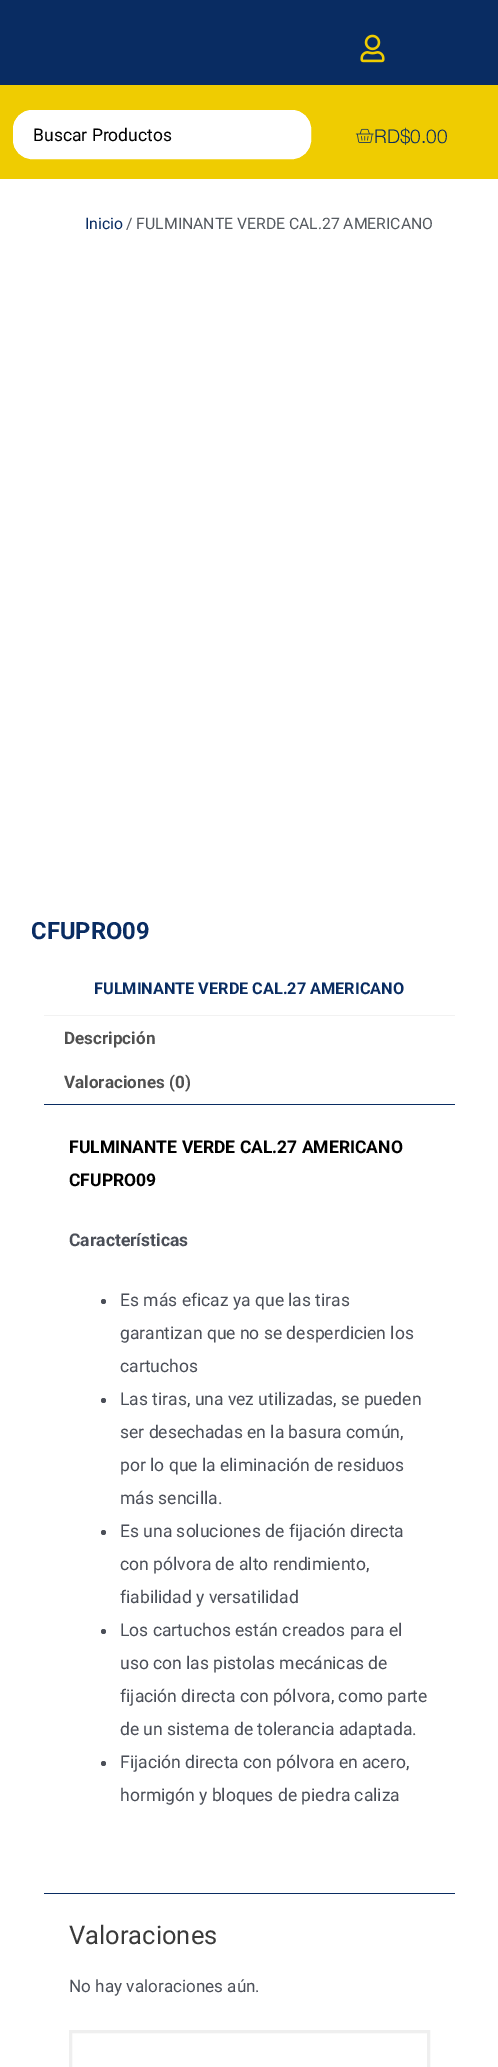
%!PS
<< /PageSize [498 2067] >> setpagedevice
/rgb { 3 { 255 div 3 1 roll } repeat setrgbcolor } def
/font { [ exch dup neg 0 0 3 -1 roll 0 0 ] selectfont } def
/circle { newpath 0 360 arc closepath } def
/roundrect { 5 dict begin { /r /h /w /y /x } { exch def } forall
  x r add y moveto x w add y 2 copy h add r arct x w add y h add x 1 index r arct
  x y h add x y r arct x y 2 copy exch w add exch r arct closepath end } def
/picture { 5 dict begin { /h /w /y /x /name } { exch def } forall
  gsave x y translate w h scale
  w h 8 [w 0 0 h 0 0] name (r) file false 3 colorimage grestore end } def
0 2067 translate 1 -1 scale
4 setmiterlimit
255 255 255 rgb
0 0 498 2067 rectfill
9 44 98 rgb
0 0 498 85 rectfill
(img/1.rgb) 360 34 25 29 picture
239 204 1 rgb
0 85 498 94 rectfill
255 255 255 rgb
13.5 110.5 297 48 18.5 roundrect gsave fill grestore
stroke
(img/2.rgb) 355 128 19 15 picture
242 242 242 rgb
44 1015 411 1 rectfill
9 44 98 rgb
44 1104 411 1 rectfill
75 79 88 rgb
103.5 1301.5 2.5 circle fill
103.5 1400.5 2.5 circle fill
103.5 1532.5 2.5 circle fill
103.5 1631.5 2.5 circle fill
103.5 1763.5 2.5 circle fill
9 44 98 rgb
44 1893 411 1 rectfill
239 239 239 rgb
3 setlinewidth
70.5 2031.5 358 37 rectstroke
/Roboto-Regular 17.5 font
0 0 0 rgb
33 141 moveto (Buscar Productos) show
/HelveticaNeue-Light 19 font
9 44 98 rgb
374 143 moveto (RD$0.00) show
/Roboto-Regular 15.75 font
85 229 moveto (Inicio) show
84 89 95 rgb
126 229 moveto (/ FULMINANTE VERDE CAL.27 AMERICANO) show
/Roboto-Bold 23.75 font
9 44 98 rgb
31 939 moveto (CFUPRO09) show
/Roboto-Bold 16.25 font
94 994 moveto (FULMINANTE VERDE CAL.27 AMERICANO) show
/Roboto-Bold 17.1 font
81 81 81 rgb
64 1044 moveto (Descripción) show
64 1088 moveto (Valoraciones \(0\)) show
/Roboto-Bold 17.5 font
0 0 0 rgb
69 1153 moveto (FULMINANTE VERDE CAL.27 AMERICANO) show
69 1186 moveto (CFUPRO09) show
75 79 88 rgb
69 1246 moveto (Características) show
/Roboto-Regular 17.5 font
[
  [(Es más eficaz ya que las tiras) 120 1306]
  [(garantizan que no se desperdicien los) 120 1339]
  [(cartuchos) 120 1372]
  [(Las tiras, una vez utilizadas, se pueden) 120 1405]
  [(ser desechadas en la basura común,) 120 1438]
  [(por lo que la eliminación de residuos) 120 1471]
  [(más sencilla.) 120 1504]
  [(Es una soluciones de fijación directa) 120 1537]
  [(con pólvora de alto rendimiento,) 120 1570]
  [(fiabilidad y versatilidad) 120 1603]
  [(Los cartuchos están creados para el) 120 1636]
  [(uso con las pistolas mecánicas de) 120 1669]
  [(fijación directa con pólvora, como parte) 120 1702]
  [(de un sistema de tolerancia adaptada.) 120 1735]
  [(Fijación directa con pólvora en acero,) 120 1768]
  [(hormigón y bloques de piedra caliza) 120 1801]
] { aload pop moveto show } forall
/Roboto-Regular 25.5 font
58 58 58 rgb
69 1944 moveto (Valoraciones) show
/Roboto-Regular 17.1 font
75 79 88 rgb
69 1992 moveto (No hay valoraciones aún.) show
showpage
